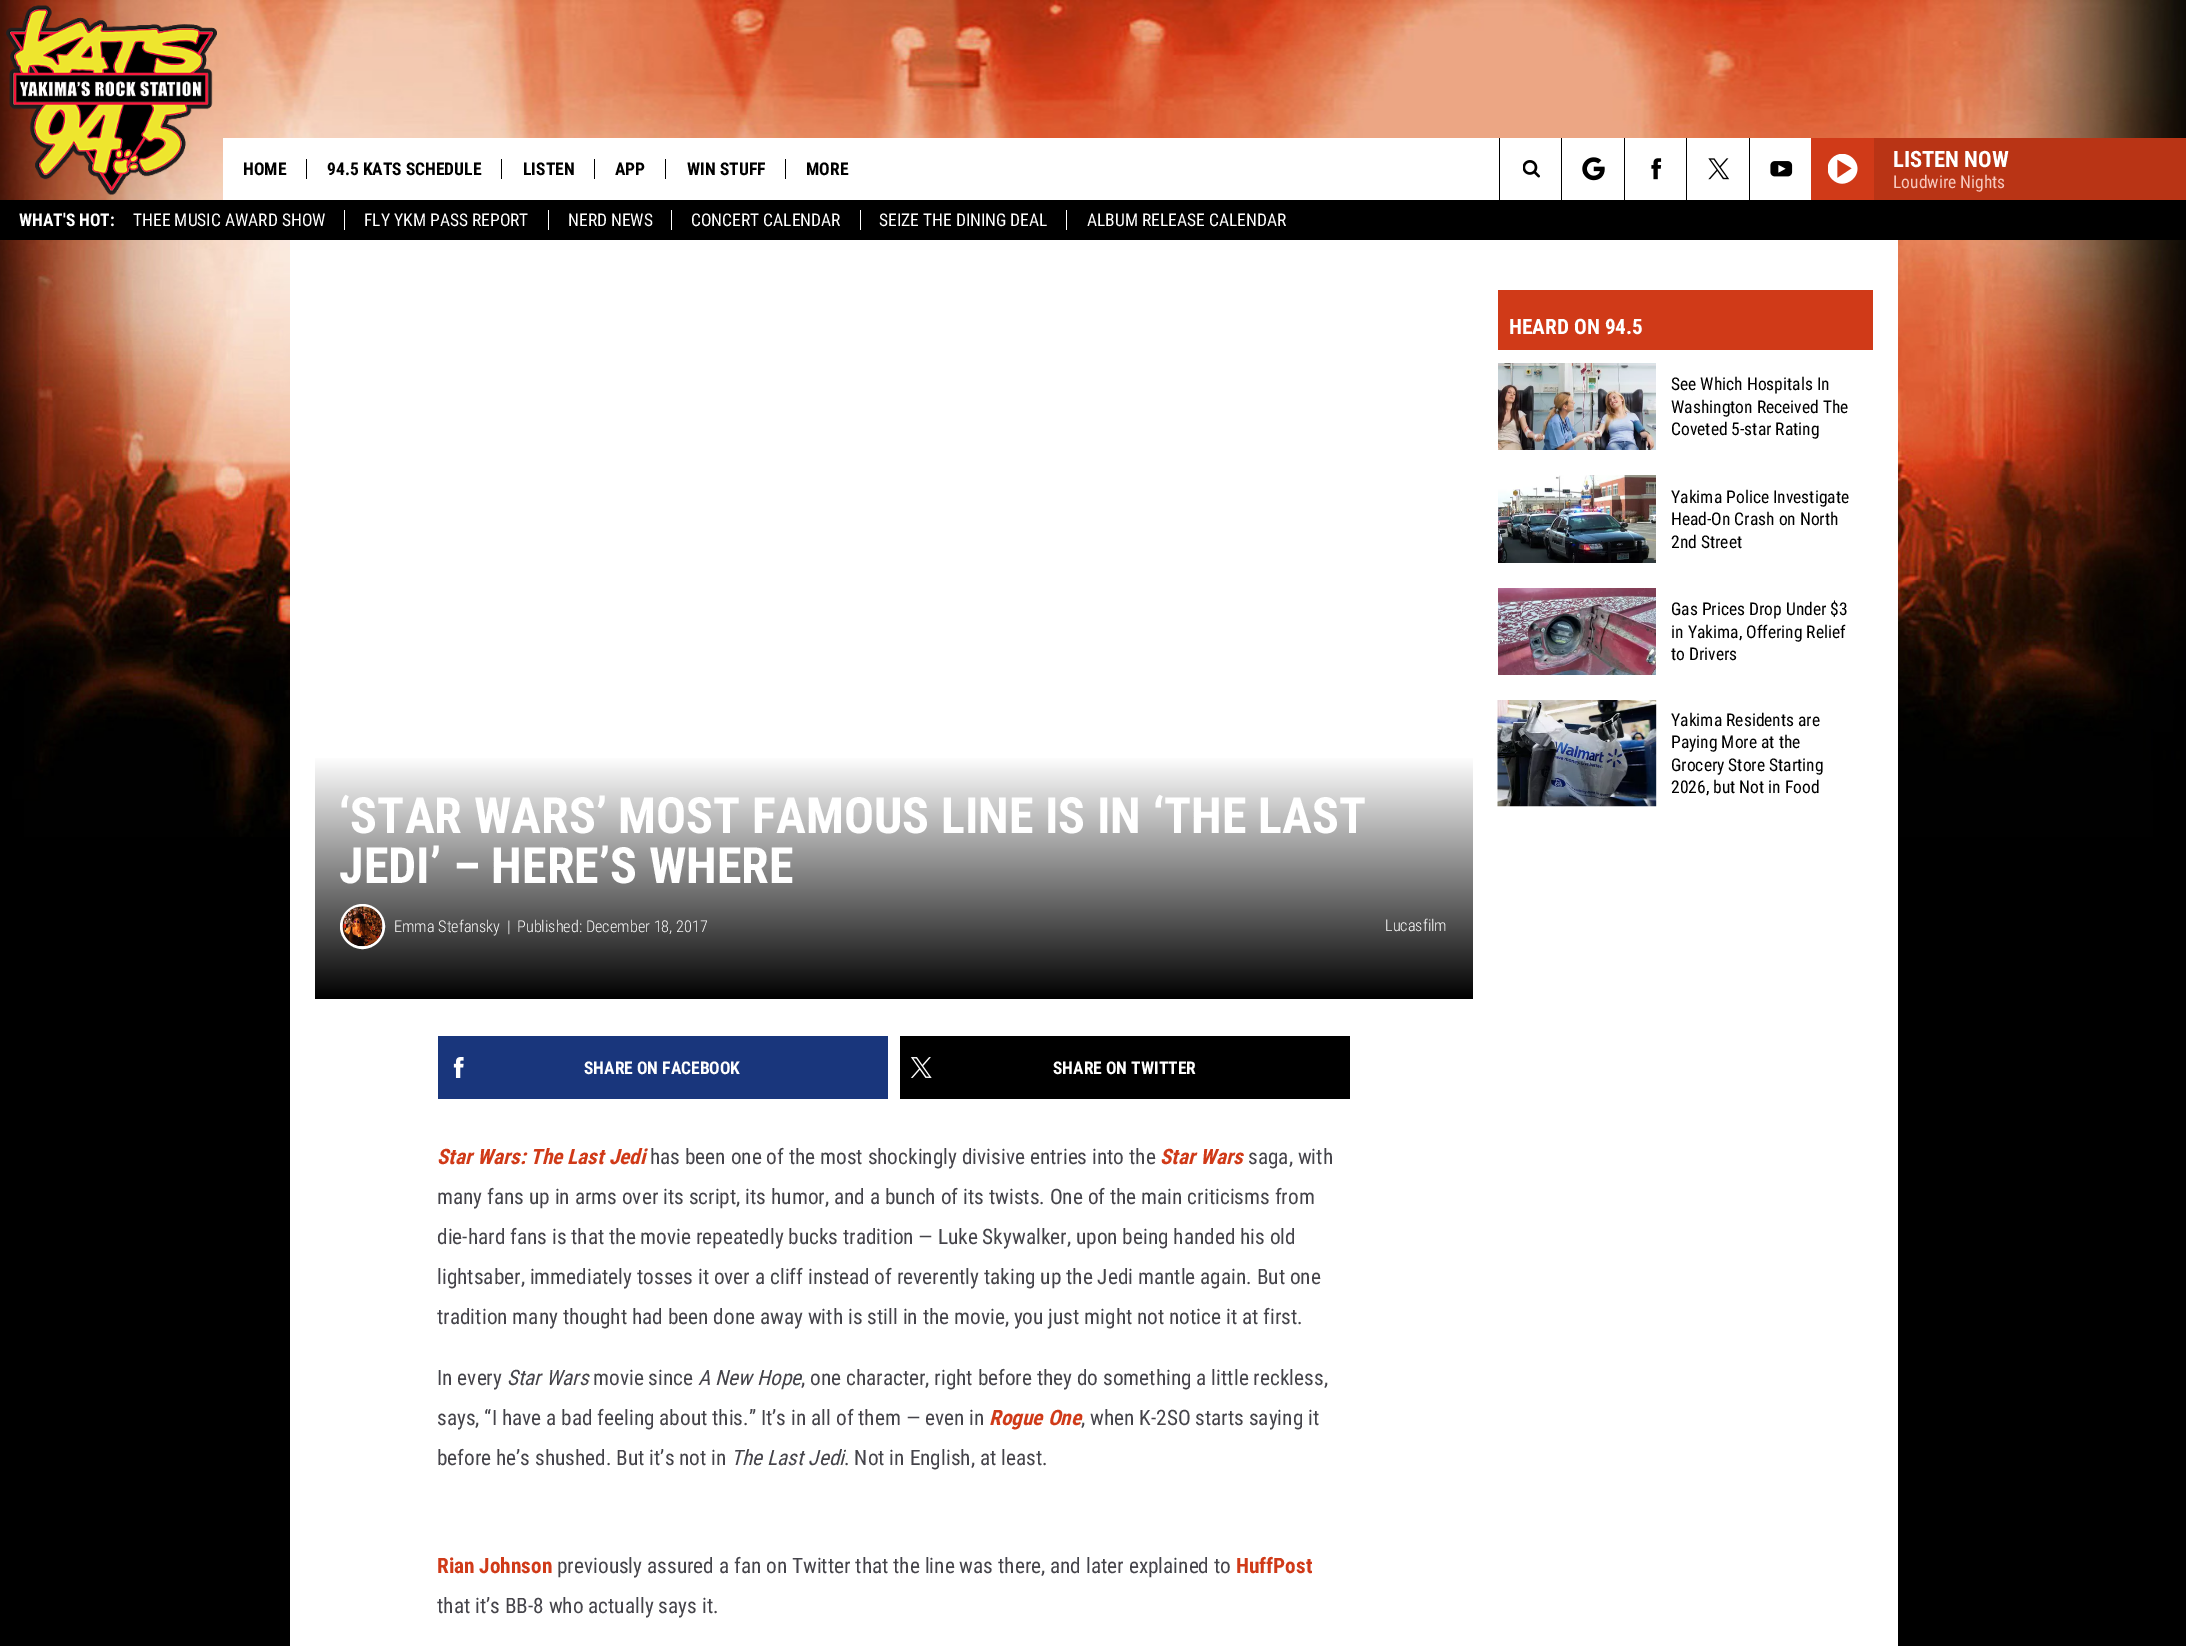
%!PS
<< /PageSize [2186 1646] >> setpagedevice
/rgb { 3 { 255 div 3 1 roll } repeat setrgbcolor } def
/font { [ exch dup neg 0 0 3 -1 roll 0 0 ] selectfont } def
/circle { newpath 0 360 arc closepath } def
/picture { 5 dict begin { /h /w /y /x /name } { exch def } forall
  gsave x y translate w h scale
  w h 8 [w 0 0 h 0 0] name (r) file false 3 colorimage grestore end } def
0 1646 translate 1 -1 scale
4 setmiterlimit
0 0 0 rgb
0 0 2186 1646 rectfill
(img/1.rgb) 0 240 2186 597 picture
(img/2.rgb) 0 0 2186 200 picture
(img/3.rgb) 6 5 211 190 picture
[
  [223 138 1588 62 255 255 255]
  [306 159 1 20 0 0 0]
  [501 159 1 20 0 0 0]
  [594 159 1 20 0 0 0]
  [665 159 1 20 0 0 0]
  [785 159 1 20 0 0 0]
  [1499 138 1 62 0 0 0]
] { aload pop rgb rectfill } forall
(img/4.rgb) 1523 160 17 18 picture
1561 138 1 62 rectfill
(img/5.rgb) 1582 157 23 24 picture
1624 138 1 62 rectfill
(img/6.rgb) 1651 158 11 22 picture
1686 138 1 62 rectfill
(img/7.rgb) 1708 158 22 22 picture
1749 138 1 62 rectfill
(img/8.rgb) 1770 161 23 16 picture
208 58 24 rgb
1811 138 63 62 rectfill
(img/9.rgb) 1828 154 30 30 picture
[
  [1874 138 312 62 185 52 21]
  [344 210 1 20 255 255 255]
  [548 210 1 20 255 255 255]
  [671 210 1 20 255 255 255]
  [860 210 1 20 255 255 255]
  [1066 210 1 20 255 255 255]
  [290 240 1608 1406 255 255 255]
  [1498 290 375 60 208 58 24]
] { aload pop rgb rectfill } forall
(img/10.rgb) 1498 363 158 87 picture
(img/11.rgb) 1498 475 158 88 picture
(img/12.rgb) 1498 588 158 87 picture
(img/13.rgb) 1497 700 160 107 picture
gsave 315 758 moveto 1473 758 lineto 1473 999 lineto 315 999 lineto closepath clip newpath
<< /ShadingType 2 /ColorSpace /DeviceRGB /Coords [894 756 894 999] /Extend [true true] /Function << /FunctionType 2 /Domain [0 1] /C0 [1 1 1] /C1 [0 0 0] /N 1 >> >> shfill grestore
255 255 255 rgb
3 setlinewidth
362.5 926.5 21 circle stroke
(img/14.rgb) 342 906 41 41 picture
25 54 124 rgb
438 1036 450 63 rectfill
(img/15.rgb) 453 1057 11 21 picture
0 0 0 rgb
900 1036 450 63 rectfill
(img/16.rgb) 910 1057 22 21 picture
/RobotoCondensed-Bold 17.5 font
[
  [(HOME) 243 175]
  [(94.5 KATS SCHEDULE) 327 175]
  [(LISTEN) 523 175]
  [(APP) 615 175]
  [(WIN STUFF) 687 175]
  [(MORE) 806 175]
] { aload pop moveto show } forall
/RobotoCondensed-Bold 22.5 font
255 255 255 rgb
1893 167 moveto (LISTEN NOW) show
/RobotoCondensed-Regular 17.5 font
247 200 189 rgb
1893 188 moveto (Loudwire Nights) show
/RobotoCondensed-Bold 17.5 font
255 255 255 rgb
19 226 moveto (WHAT'S HOT:) show
/RobotoCondensed-Regular 17.5 font
[
  [(THEE MUSIC AWARD SHOW) 133 226]
  [(FLY YKM PASS REPORT) 364 226]
  [(NERD NEWS) 568 226]
  [(CONCERT CALENDAR) 691 226]
  [(SEIZE THE DINING DEAL) 879 226]
  [(ALBUM RELEASE CALENDAR) 1087 226]
] { aload pop moveto show } forall
/RobotoCondensed-Bold 21.25 font
1509 334 moveto (HEARD ON 94.5) show
/RobotoCondensed-Regular 17.5 font
0 0 0 rgb
[
  [(See Which Hospitals In) 1671 390]
  [(Washington Received The) 1671 413]
  [(Coveted 5-star Rating) 1671 435]
  [(Yakima Police Investigate) 1671 503]
  [(Head-On Crash on North) 1671 525]
  [(2nd Street) 1671 548]
  [(Gas Prices Drop Under $3) 1671 615]
  [(in Yakima, Offering Relief) 1671 638]
  [(to Drivers) 1671 660]
  [(Yakima Residents are) 1671 726]
  [(Paying More at the) 1671 748]
  [(Grocery Store Starting) 1671 771]
  [(2026, but Not in Food) 1671 793]
] { aload pop moveto show } forall
/RobotoCondensed-Bold 50 font
255 255 255 rgb
339 833 moveto (‘STAR WARS’ MOST FAMOUS LINE IS IN ‘THE LAST) show
339 883 moveto (JEDI’ – HERE’S WHERE) show
/RobotoCondensed-Light 16.25 font
[
  [(Emma Stefansky) 394 932]
  [(|) 507 932]
  [(Published: December 18, 2017) 517 932]
  [(Lucasfilm) 1385 931]
] { aload pop moveto show } forall
/RobotoCondensed-Bold 17.5 font
584 1074 moveto (SHARE ON FACEBOOK) show
1053 1074 moveto (SHARE ON TWITTER) show
/RobotoCondensed-BoldItalic 21.25 font
208 58 24 rgb
437 1164 moveto (Star Wars: The Last Jedi) show
/RobotoCondensed-Regular 21.25 font
69 68 74 rgb
650 1164 moveto (has been one of the most shockingly divisive entries into the) show
/RobotoCondensed-BoldItalic 21.25 font
208 58 24 rgb
1160 1164 moveto (Star Wars) show
/RobotoCondensed-Regular 21.25 font
69 68 74 rgb
[
  [(saga, with) 1248 1164]
  [(many fans up in arms over its script, its humor, and a bunch of its twists. One of the main criticisms from) 437 1204]
  [(die-hard fans is that the movie repeatedly bucks tradition — Luke Skywalker, upon being handed his old) 437 1244]
  [(lightsaber, immediately tosses it over a cliff instead of reverently taking up the Jedi mantle again. But one) 437 1284]
  [(tradition many thought had been done away with is still in the movie, you just might not notice it at first.) 437 1324]
  [(In every) 437 1385]
] { aload pop moveto show } forall
/RobotoCondensed-Italic 21.25 font
507 1385 moveto (Star Wars) show
/RobotoCondensed-Regular 21.25 font
593 1385 moveto (movie since) show
/RobotoCondensed-Italic 21.25 font
698 1385 moveto (A New Hope) show
/RobotoCondensed-Regular 21.25 font
801 1385 moveto (, one character, right before they do something a little reckless,) show
437 1425 moveto (says, “I have a bad feeling about this.” It’s in all of them — even in) show
/RobotoCondensed-BoldItalic 21.25 font
208 58 24 rgb
989 1425 moveto (Rogue One) show
/RobotoCondensed-Regular 21.25 font
69 68 74 rgb
1081 1425 moveto (, when K-2SO starts saying it) show
437 1465 moveto (before he’s shushed. But it’s not in) show
/RobotoCondensed-Italic 21.25 font
731 1465 moveto (The Last Jedi) show
/RobotoCondensed-Regular 21.25 font
844 1465 moveto (. Not in English, at least.) show
/RobotoCondensed-Bold 21.25 font
208 58 24 rgb
437 1573 moveto (Rian Johnson) show
/RobotoCondensed-Regular 21.25 font
69 68 74 rgb
557 1573 moveto (previously assured a fan on Twitter that the line was there, and later explained to) show
/RobotoCondensed-Bold 21.25 font
208 58 24 rgb
1236 1573 moveto (HuffPost) show
/RobotoCondensed-Regular 21.25 font
69 68 74 rgb
437 1613 moveto (that it’s BB-8 who actually says it.) show
showpage
